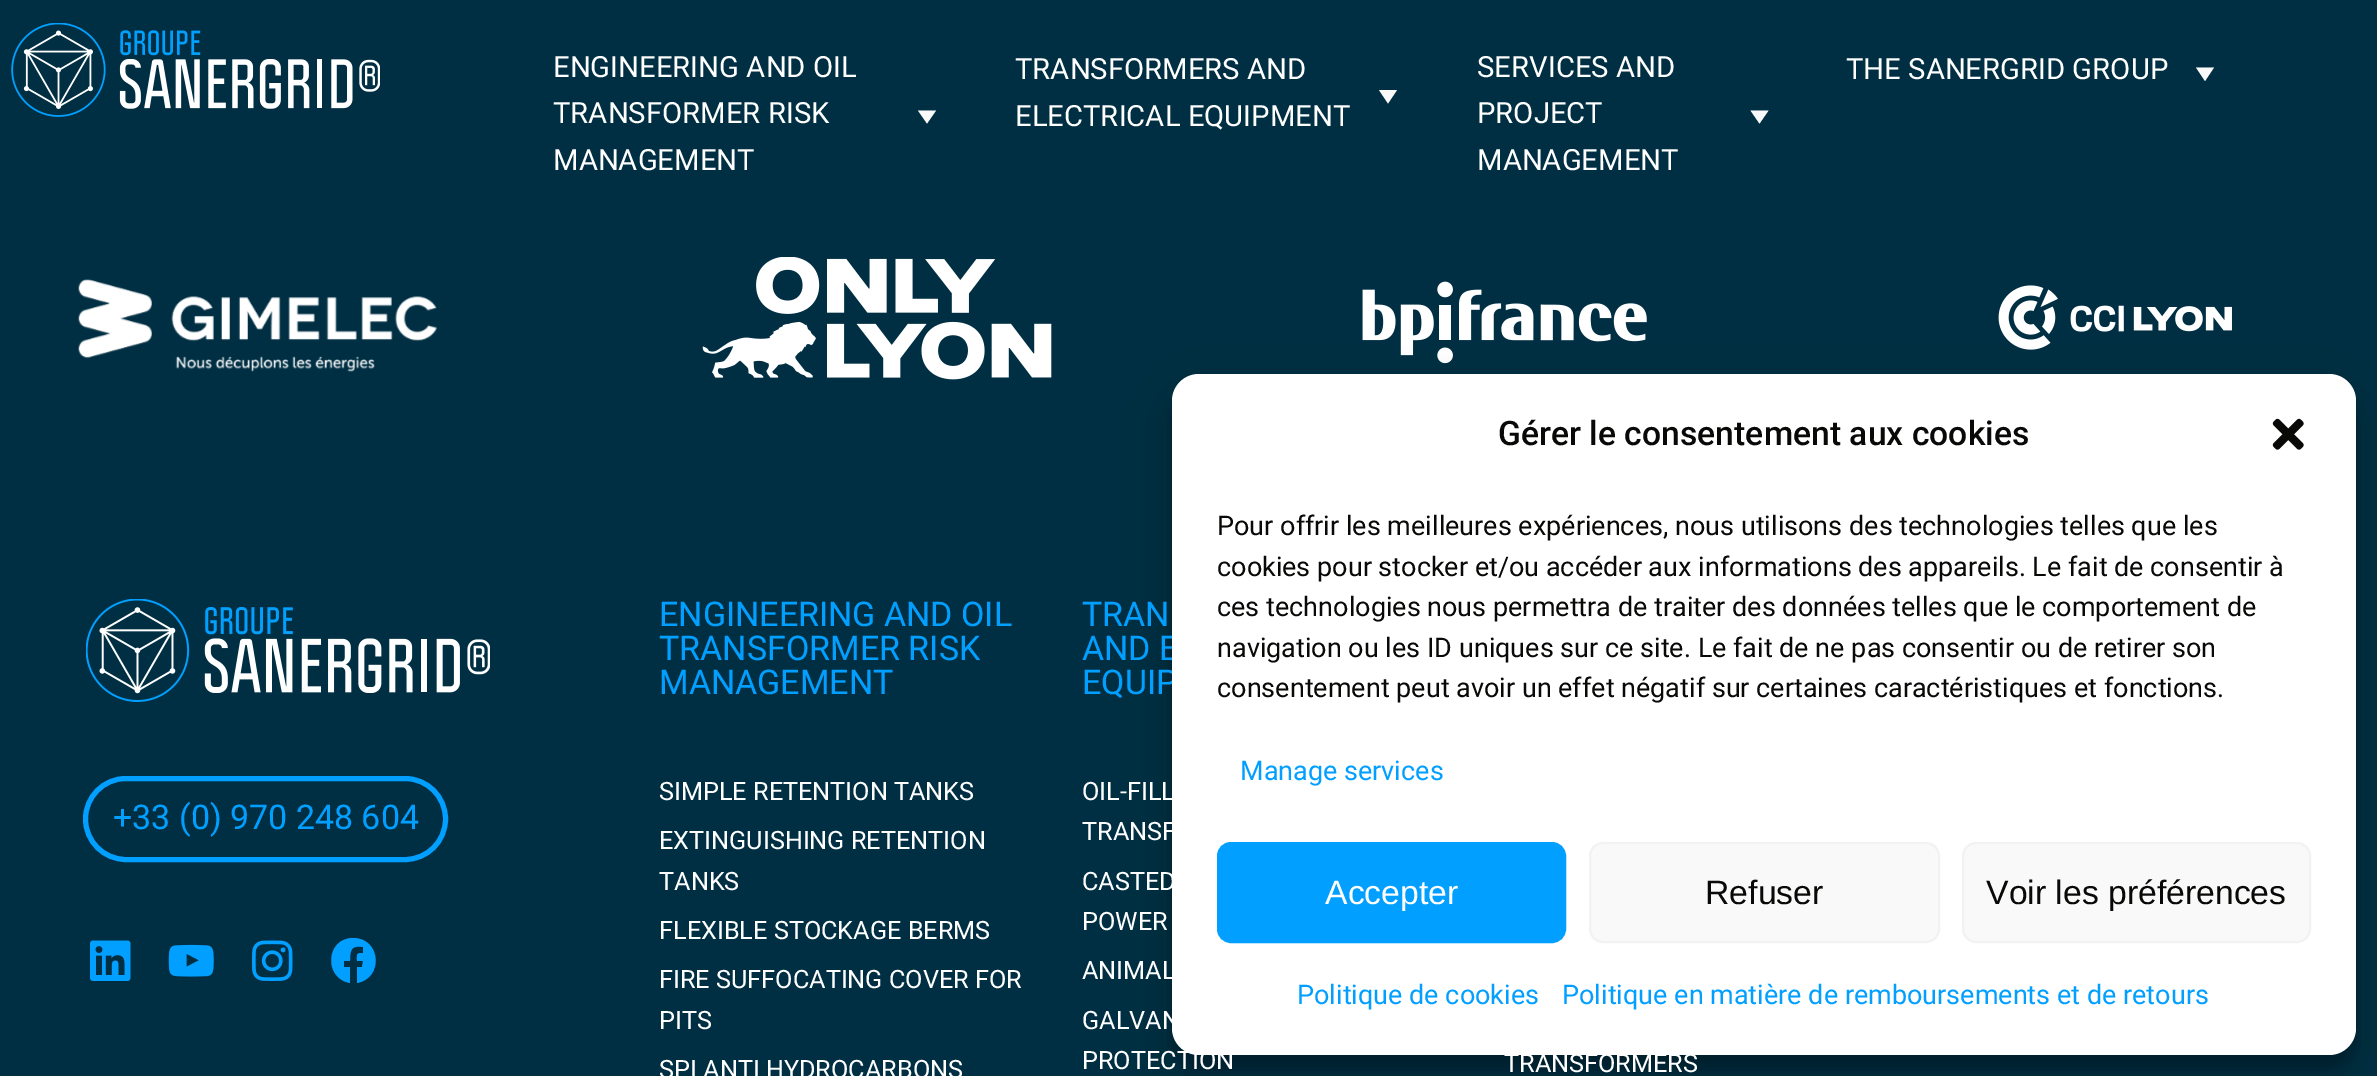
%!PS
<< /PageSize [2377 1076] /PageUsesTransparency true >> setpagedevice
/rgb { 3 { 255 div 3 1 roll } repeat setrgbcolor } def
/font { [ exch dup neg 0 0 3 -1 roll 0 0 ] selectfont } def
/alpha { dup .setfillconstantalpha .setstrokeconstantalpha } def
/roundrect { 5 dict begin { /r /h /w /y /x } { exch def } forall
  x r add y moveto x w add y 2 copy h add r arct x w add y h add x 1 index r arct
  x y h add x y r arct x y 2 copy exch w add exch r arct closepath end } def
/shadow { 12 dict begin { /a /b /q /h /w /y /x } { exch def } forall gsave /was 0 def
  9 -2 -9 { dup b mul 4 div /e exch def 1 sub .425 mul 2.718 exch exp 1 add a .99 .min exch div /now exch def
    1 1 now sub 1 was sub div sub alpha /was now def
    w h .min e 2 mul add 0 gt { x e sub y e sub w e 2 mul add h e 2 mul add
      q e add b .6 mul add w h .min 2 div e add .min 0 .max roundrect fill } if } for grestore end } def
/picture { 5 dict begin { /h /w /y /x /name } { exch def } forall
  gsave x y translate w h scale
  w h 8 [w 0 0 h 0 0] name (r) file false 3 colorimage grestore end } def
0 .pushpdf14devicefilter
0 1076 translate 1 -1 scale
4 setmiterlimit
0 47 67 rgb
0 0 2377 1076 rectfill
(img/1.rgb) 11 23 369 94 picture
250 250 250 rgb
936 110.5 moveto 927 123.5 lineto 918 110.5 lineto closepath fill
1397 90 moveto 1388 103.5 lineto 1379 90 lineto closepath fill
1768.5 110.5 moveto 1759.5 123.5 lineto 1750.5 110.5 lineto closepath fill
2214 67.5 moveto 2205 81 lineto 2196 67.5 lineto closepath fill
(img/2.rgb) 78 279 359 93 picture
(img/3.rgb) 702 257 350 123 picture
(img/4.rgb) 1362 281 285 83 picture
(img/5.rgb) 1998 285 234 65 picture
(img/6.rgb) 86 599 404 103 picture
1 159 255 rgb
5 setlinewidth
85.5 778.5 360 81 40.5 roundrect stroke
(img/7.rgb) 90 940 41 41 picture
(img/8.rgb) 168 944 46 33 picture
(img/9.rgb) 252 940 41 41 picture
353 938 moveto 326 938 323 978 350 983 curveto 350 967 lineto 344 967 lineto 344 961 lineto 350 961 lineto 350 950 351 945 363 947 curveto 363 953 lineto 356 953 357 954 357 961 curveto 363 961 lineto 362 967 lineto 357 967 lineto 357 983 lineto 384 978 381 938 353 938 curveto closepath fill
0 0 0 rgb
1172 387 1184 682 27 7 0.23 shadow
1172 396 1184 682 27 22.5 0.19 shadow
/Roboto-Regular 29.25 font
255 255 255 rgb
[
  [(ENGINEERING AND OIL) 553 77]
  [(TRANSFORMER RISK) 553 123]
  [(MANAGEMENT) 553 170]
  [(TRANSFORMERS AND) 1015 79]
  [(ELECTRICAL EQUIPMENT) 1015 126]
  [(SERVICES AND) 1477 77]
  [(PROJECT) 1477 123]
  [(MANAGEMENT) 1477 170]
  [(THE SANERGRID GROUP) 1846 79]
] { aload pop moveto show } forall
/Roboto-Regular 34 font
1 159 255 rgb
[
  [(+33 \(0\) 970 248 604) 113 829]
  [(ENGINEERING AND OIL) 659 626]
  [(TRANSFORMER RISK) 659 660]
  [(MANAGEMENT) 659 694]
] { aload pop moveto show } forall
/Roboto-Regular 25.25 font
255 255 255 rgb
[
  [(SIMPLE RETENTION TANKS) 659 800]
  [(EXTINGUISHING RETENTION) 659 849]
  [(TANKS) 659 890]
  [(FLEXIBLE STOCKAGE BERMS) 659 939]
  [(FIRE SUFFOCATING COVER FOR) 659 988]
  [(PITS) 659 1029]
  [(SPI ANTI HYDROCARBONS) 659 1078]
] { aload pop moveto show } forall
/Roboto-Regular 34 font
1 159 255 rgb
[
  [(TRAN) 1082 626]
  [(AND E) 1082 660]
  [(EQUIP) 1082 694]
] { aload pop moveto show } forall
/Roboto-Regular 25.25 font
255 255 255 rgb
[
  [(OIL-FILL) 1082 800]
  [(TRANSF) 1082 840]
  [(CASTED) 1082 890]
  [(POWER) 1082 930]
  [(ANIMAL) 1082 979]
  [(GALVAN) 1082 1029]
  [(PROTECTION) 1082 1069]
  [(TRANSFORMERS) 1504 1072]
] { aload pop moveto show } forall
1172 374 1184 681 27 roundrect fill
/Roboto-Medium 33.75 font
9 10 8 rgb
1498 445 moveto (Gérer le consentement aux cookies) show
(img/10.rgb) 2272 418 32 32 picture
/Roboto-Regular 27 font
[
  [(Pour offrir les meilleures expériences, nous utilisons des technologies telles que les) 1217 535]
  [(cookies pour stocker et/ou accéder aux informations des appareils. Le fait de consentir à) 1217 576]
  [(ces technologies nous permettra de traiter des données telles que le comportement de) 1217 616]
  [(navigation ou les ID uniques sur ce site. Le fait de ne pas consentir ou de retirer son) 1217 657]
  [(consentement peut avoir un effet négatif sur certaines caractéristiques et fonctions.) 1217 697]
] { aload pop moveto show } forall
1 159 255 rgb
1240 780 moveto (Manage services) show
1218 843 347 99 13 roundrect gsave fill grestore
2 setlinewidth
stroke
/LiberationSans-Regular 33.75 font
255 255 255 rgb
1325 904 moveto (Accepter) show
249 249 249 rgb
1590 843 349 99 13 roundrect gsave fill grestore
242 242 242 rgb
stroke
9 10 8 rgb
1705 904 moveto (Refuser) show
249 249 249 rgb
1963 843 347 99 13 roundrect gsave fill grestore
242 242 242 rgb
stroke
9 10 8 rgb
1986 904 moveto (Voir les préférences) show
/Roboto-Regular 27 font
1 159 255 rgb
1297 1004 moveto (Politique de cookies) show
1562 1004 moveto (Politique en matière de remboursements et de retours) show
.poppdf14devicefilter showpage
